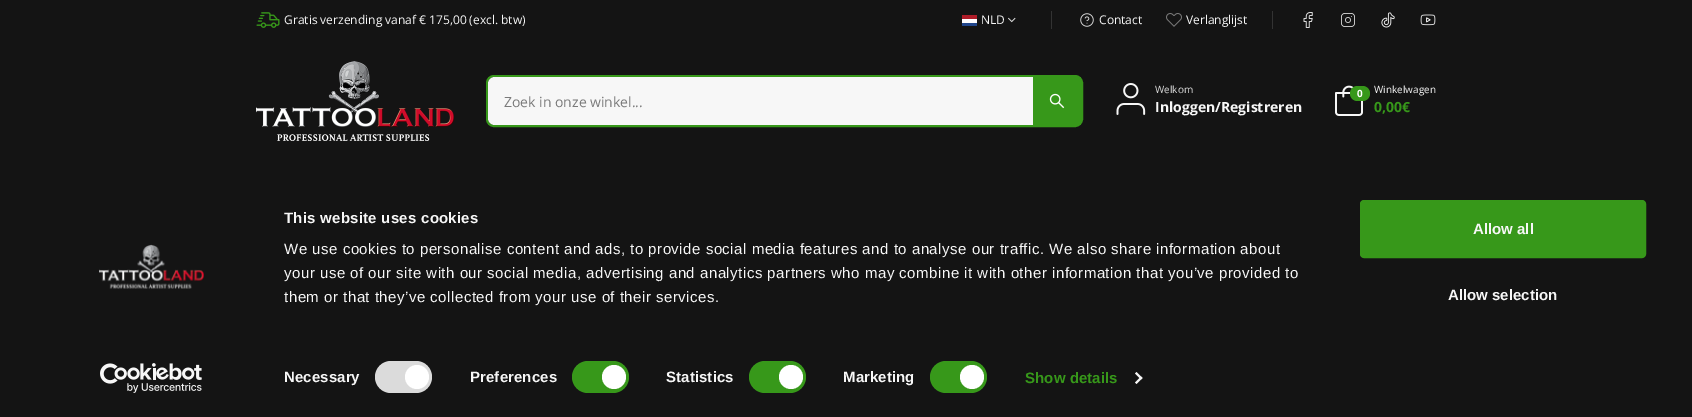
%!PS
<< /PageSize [1692 417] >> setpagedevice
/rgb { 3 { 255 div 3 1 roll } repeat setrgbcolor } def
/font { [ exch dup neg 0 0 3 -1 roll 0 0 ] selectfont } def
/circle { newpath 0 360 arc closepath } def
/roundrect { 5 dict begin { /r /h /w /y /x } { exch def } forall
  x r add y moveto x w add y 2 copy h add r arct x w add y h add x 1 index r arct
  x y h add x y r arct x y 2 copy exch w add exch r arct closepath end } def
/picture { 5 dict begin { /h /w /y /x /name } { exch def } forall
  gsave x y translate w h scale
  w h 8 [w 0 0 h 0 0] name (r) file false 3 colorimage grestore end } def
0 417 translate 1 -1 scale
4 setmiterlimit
20 20 20 rgb
0 0 1692 417 rectfill
(img/1.rgb) 256 12 24 16 picture
[
  [962 23 15 3 33 70 139]
  [962 19 15 4 255 255 255]
  [962 15 15 4 174 28 40]
] { aload pop rgb rectfill } forall
(img/2.rgb) 1008 17 8 6 picture
51 51 51 rgb
1051 11 1 18 rectfill
(img/3.rgb) 1080 13 14 14 picture
(img/4.rgb) 1166 13 16 14 picture
1272 11 1 18 rectfill
(img/5.rgb) 1303 12 10 16 picture
(img/6.rgb) 1341 13 14 14 picture
(img/7.rgb) 1381 12 14 16 picture
(img/8.rgb) 1420 14 16 12 picture
(img/9.rgb) 256 61 198 80 picture
55 152 26 rgb
2 setlinewidth
487 76 595 50 7 roundrect stroke
247 247 247 rgb
495 77 moveto 1033 77 lineto 1033 125 lineto 495 125 lineto 491 125 488 122 488 118 curveto 488 84 lineto 488 80 491 77 495 77 curveto closepath fill
55 152 26 rgb
1033 77 48 48 rectfill
(img/10.rgb) 1049 93 16 16 picture
(img/11.rgb) 1116 83 30 32 picture
(img/12.rgb) 1335 85 28 31 picture
1350 86 20 15 7.5 roundrect fill
(img/13.rgb) 99 244 105 45 picture
(img/14.rgb) 100 363 102 30 picture
219 219 219 rgb
375 361 57 32 16 roundrect fill
255 255 255 rgb
417 377 12 circle fill
55 152 26 rgb
572 361 57 32 16 roundrect fill
255 255 255 rgb
614 377 12 circle fill
55 152 26 rgb
749 361 57 32 16 roundrect fill
255 255 255 rgb
791 377 12 circle fill
55 152 26 rgb
930 361 57 32 16 roundrect fill
255 255 255 rgb
972 377 12 circle fill
247 247 247 rgb
1136.5 372 moveto 1142.5 378 lineto 1141 379.5 lineto 1135 373.5 lineto closepath fill
1141 376.5 moveto 1142.5 378 lineto 1136.5 384 lineto 1135 382.5 lineto closepath fill
55 152 26 rgb
1361 201 284 56 3 roundrect gsave fill grestore
stroke
/OpenSans-Regular 12 font
247 247 247 rgb
[
  [(Gratis verzending vanaf € 175,00 \(excl. btw\)) 284 24]
  [(NLD) 981 24]
  [(Contact) 1099 24]
  [(Verlanglijst) 1186 24]
] { aload pop moveto show } forall
/OpenSans-Regular 14 font
122 122 122 rgb
504 107 moveto (Zoek in onze winkel...) show
/OpenSans-Regular 10 font
219 219 219 rgb
1155 93 moveto (Welkom) show
/OpenSans-Bold 14 font
247 247 247 rgb
1155 112 moveto (Inloggen/Registreren) show
/OpenSans-Bold 10 font
255 255 255 rgb
1357 97 moveto (0) show
/OpenSans-Regular 10 font
247 247 247 rgb
1374 93 moveto (Winkelwagen) show
/OpenSans-Bold 14 font
55 152 26 rgb
1374 112 moveto (0,00€) show
/LiberationSans-Bold 15 font
247 247 247 rgb
284 223 moveto 0.25 0 (This website uses cookies) ashow
/LiberationSans-Regular 15 font
284 254 moveto 0.5 0 (We use cookies to personalise content and ads, to provide social media features and to analyse our traffic. We also share information about) ashow
284 278 moveto 0.5 0 (your use of our site with our social media, advertising and analytics partners who may combine it with other information that you’ve provided to) ashow
284 302 moveto 0.5 0 (them or that they’ve collected from your use of their services.) ashow
/LiberationSans-Bold 15 font
284 382 moveto 0.1 0 (Necessary) ashow
470 382 moveto 0.1 0 (Preferences) ashow
666 382 moveto 0.1 0 (Statistics) ashow
843 382 moveto 0.1 0 (Marketing) ashow
55 152 26 rgb
1025 383 moveto 0.1 0 (Show details) ashow
247 247 247 rgb
1473 234 moveto (Allow all) show
1448 300 moveto (Allow selection) show
showpage
